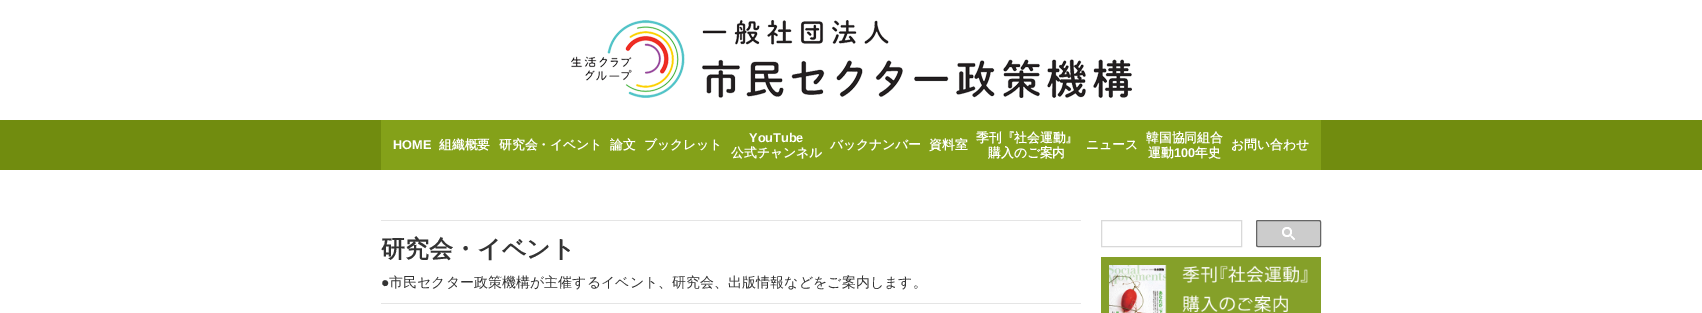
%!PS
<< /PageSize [1702 313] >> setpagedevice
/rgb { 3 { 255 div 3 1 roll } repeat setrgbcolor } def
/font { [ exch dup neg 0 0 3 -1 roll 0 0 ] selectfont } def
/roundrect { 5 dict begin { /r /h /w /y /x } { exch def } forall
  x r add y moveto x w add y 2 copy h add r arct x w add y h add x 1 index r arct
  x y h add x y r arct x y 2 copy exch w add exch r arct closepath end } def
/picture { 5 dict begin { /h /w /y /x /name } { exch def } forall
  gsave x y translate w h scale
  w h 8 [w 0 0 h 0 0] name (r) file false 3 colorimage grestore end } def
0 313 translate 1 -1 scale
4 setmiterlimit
255 255 255 rgb
0 0 1702 313 rectfill
(img/1.rgb) 571 20 561 78 picture
[
  [0 120 1702 50 113 140 15]
  [381 120 940 50 132 161 25]
  [381 220 700 1 229 229 229]
  [381 303 700 1 229 229 229]
] { aload pop rgb rectfill } forall
217 217 217 rgb
1101.5 220.5 140 26 rectstroke
204 204 204 rgb
1256 220 65 27 2 roundrect fill
(img/2.rgb) 1282 227 13 13 picture
102 102 102 rgb
1256.5 220.5 64 26 1.5 roundrect stroke
(img/3.rgb) 1101 257 220 56 picture
/LiberationSans-Bold 12.75 font
255 255 255 rgb
393 149 moveto (HOME) show
/WenQuanYiZenHei-Bold 12.75 font
[
  [(組織概要) 439 149]
  [(研究会・イベント) 499 149]
  [(論文) 610 149]
  [(ブックレット) 644 149]
] { aload pop moveto show } forall
/LiberationSans-Bold 12.75 font
749 142 moveto (YouTube) show
/WenQuanYiZenHei-Bold 12.75 font
[
  [(公式チャンネル) 731 157]
  [(バックナンバー) 830 149]
  [(資料室) 929 149]
  [(季刊『社会運動』) 976 142]
  [(購入のご案内) 988 157]
  [(ニュース) 1086 149]
  [(韓国協同組合) 1146 142]
  [(運動) 1148 157]
] { aload pop moveto show } forall
/LiberationSans-Bold 12.75 font
1174 157 moveto (100) show
/WenQuanYiZenHei-Bold 12.75 font
1195 157 moveto (年史) show
1231 149 moveto (お問い合わせ) show
/WenQuanYiZenHei-Bold 24 font
51 51 51 rgb
381 257 moveto (研究会・イベント) show
/LiberationSans-Regular 14 font
381 287 moveto (●) show
/WenQuanYiZenHei-Medium 14 font
389 287 moveto (市民セクター政策機構が主催するイベント、研究会、出版情報などをご案内します。) show
showpage
